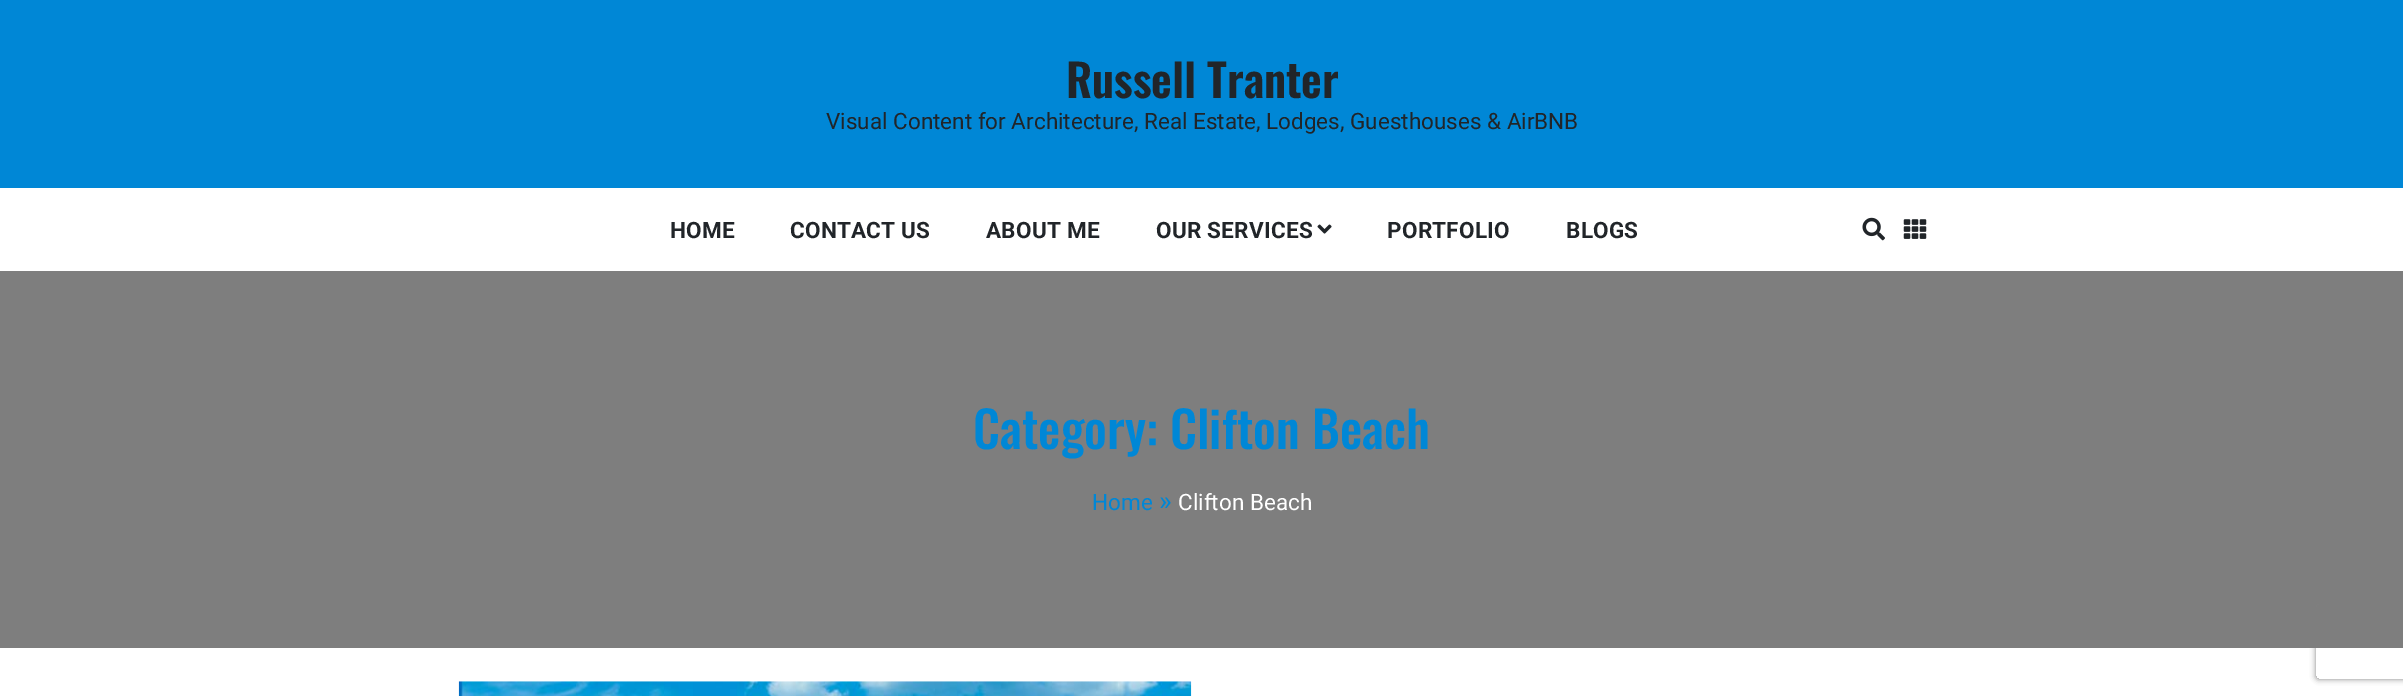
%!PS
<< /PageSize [2403 696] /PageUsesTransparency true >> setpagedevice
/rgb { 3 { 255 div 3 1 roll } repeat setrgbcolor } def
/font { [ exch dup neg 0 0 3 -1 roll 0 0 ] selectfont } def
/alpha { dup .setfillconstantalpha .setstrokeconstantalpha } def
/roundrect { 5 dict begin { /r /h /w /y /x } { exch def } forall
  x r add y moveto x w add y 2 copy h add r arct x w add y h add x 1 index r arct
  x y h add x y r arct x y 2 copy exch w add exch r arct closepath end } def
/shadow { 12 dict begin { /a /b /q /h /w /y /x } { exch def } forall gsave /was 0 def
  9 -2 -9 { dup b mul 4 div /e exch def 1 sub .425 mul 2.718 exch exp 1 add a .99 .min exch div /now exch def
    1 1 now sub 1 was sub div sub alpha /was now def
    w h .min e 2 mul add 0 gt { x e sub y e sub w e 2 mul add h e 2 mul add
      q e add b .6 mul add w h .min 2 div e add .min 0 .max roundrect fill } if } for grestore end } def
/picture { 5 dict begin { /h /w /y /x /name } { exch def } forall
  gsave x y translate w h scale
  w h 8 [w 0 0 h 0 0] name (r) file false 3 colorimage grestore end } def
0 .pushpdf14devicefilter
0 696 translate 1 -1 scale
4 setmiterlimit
255 255 255 rgb
0 0 2403 696 rectfill
0 135 214 rgb
0 0 2403 188 rectfill
(img/1.rgb) 1317 224 15 10 picture
(img/2.rgb) 1862 217 23 24 picture
(img/3.rgb) 1903 219 24 20 picture
126 126 126 rgb
0 271 2403 377 rectfill
(img/4.rgb) 458 681 734 15 picture
gsave
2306 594 moveto 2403 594 lineto 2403 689 lineto 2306 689 lineto closepath 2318.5 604 moveto 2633.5 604 lineto 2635 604 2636 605 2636 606.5 curveto 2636 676.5 lineto 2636 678 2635 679 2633.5 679 curveto 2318.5 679 lineto 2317 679 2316 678 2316 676.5 curveto 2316 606.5 lineto 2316 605 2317 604 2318.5 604 curveto closepath eoclip newpath
128 128 128 rgb
2316 604 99 75 2.5 3 1 shadow
grestore
/Oswald-SemiBold 45 font
33 37 41 rgb
1066 98 moveto (Russell Tranter) show
/Roboto-Regular 22.5 font
826 129 moveto (Visual Content for Architecture, Real Estate, Lodges, Guesthouses & AirBNB) show
/Roboto-Bold 22.5 font
670 238 moveto 0.25 0 (HOME) ashow
790 238 moveto 0.25 0 (CONTACT US) ashow
986 238 moveto 0.25 0 (ABOUT ME) ashow
1156 238 moveto 0.25 0 (OUR SERVICES) ashow
1387 238 moveto 0.25 0 (PORTFOLIO) ashow
1566 238 moveto 0.25 0 (BLOGS) ashow
/Oswald-Medium 50 font
0 135 214 rgb
973 449 moveto (Category: Clifton Beach) show
/Roboto-Regular 22.5 font
1092 510 moveto (Home) show
/Roboto-Regular 27 font
1159 510 moveto (») show
/Roboto-Regular 22.5 font
255 255 255 rgb
1178 510 moveto (Clifton Beach) show
.poppdf14devicefilter showpage
